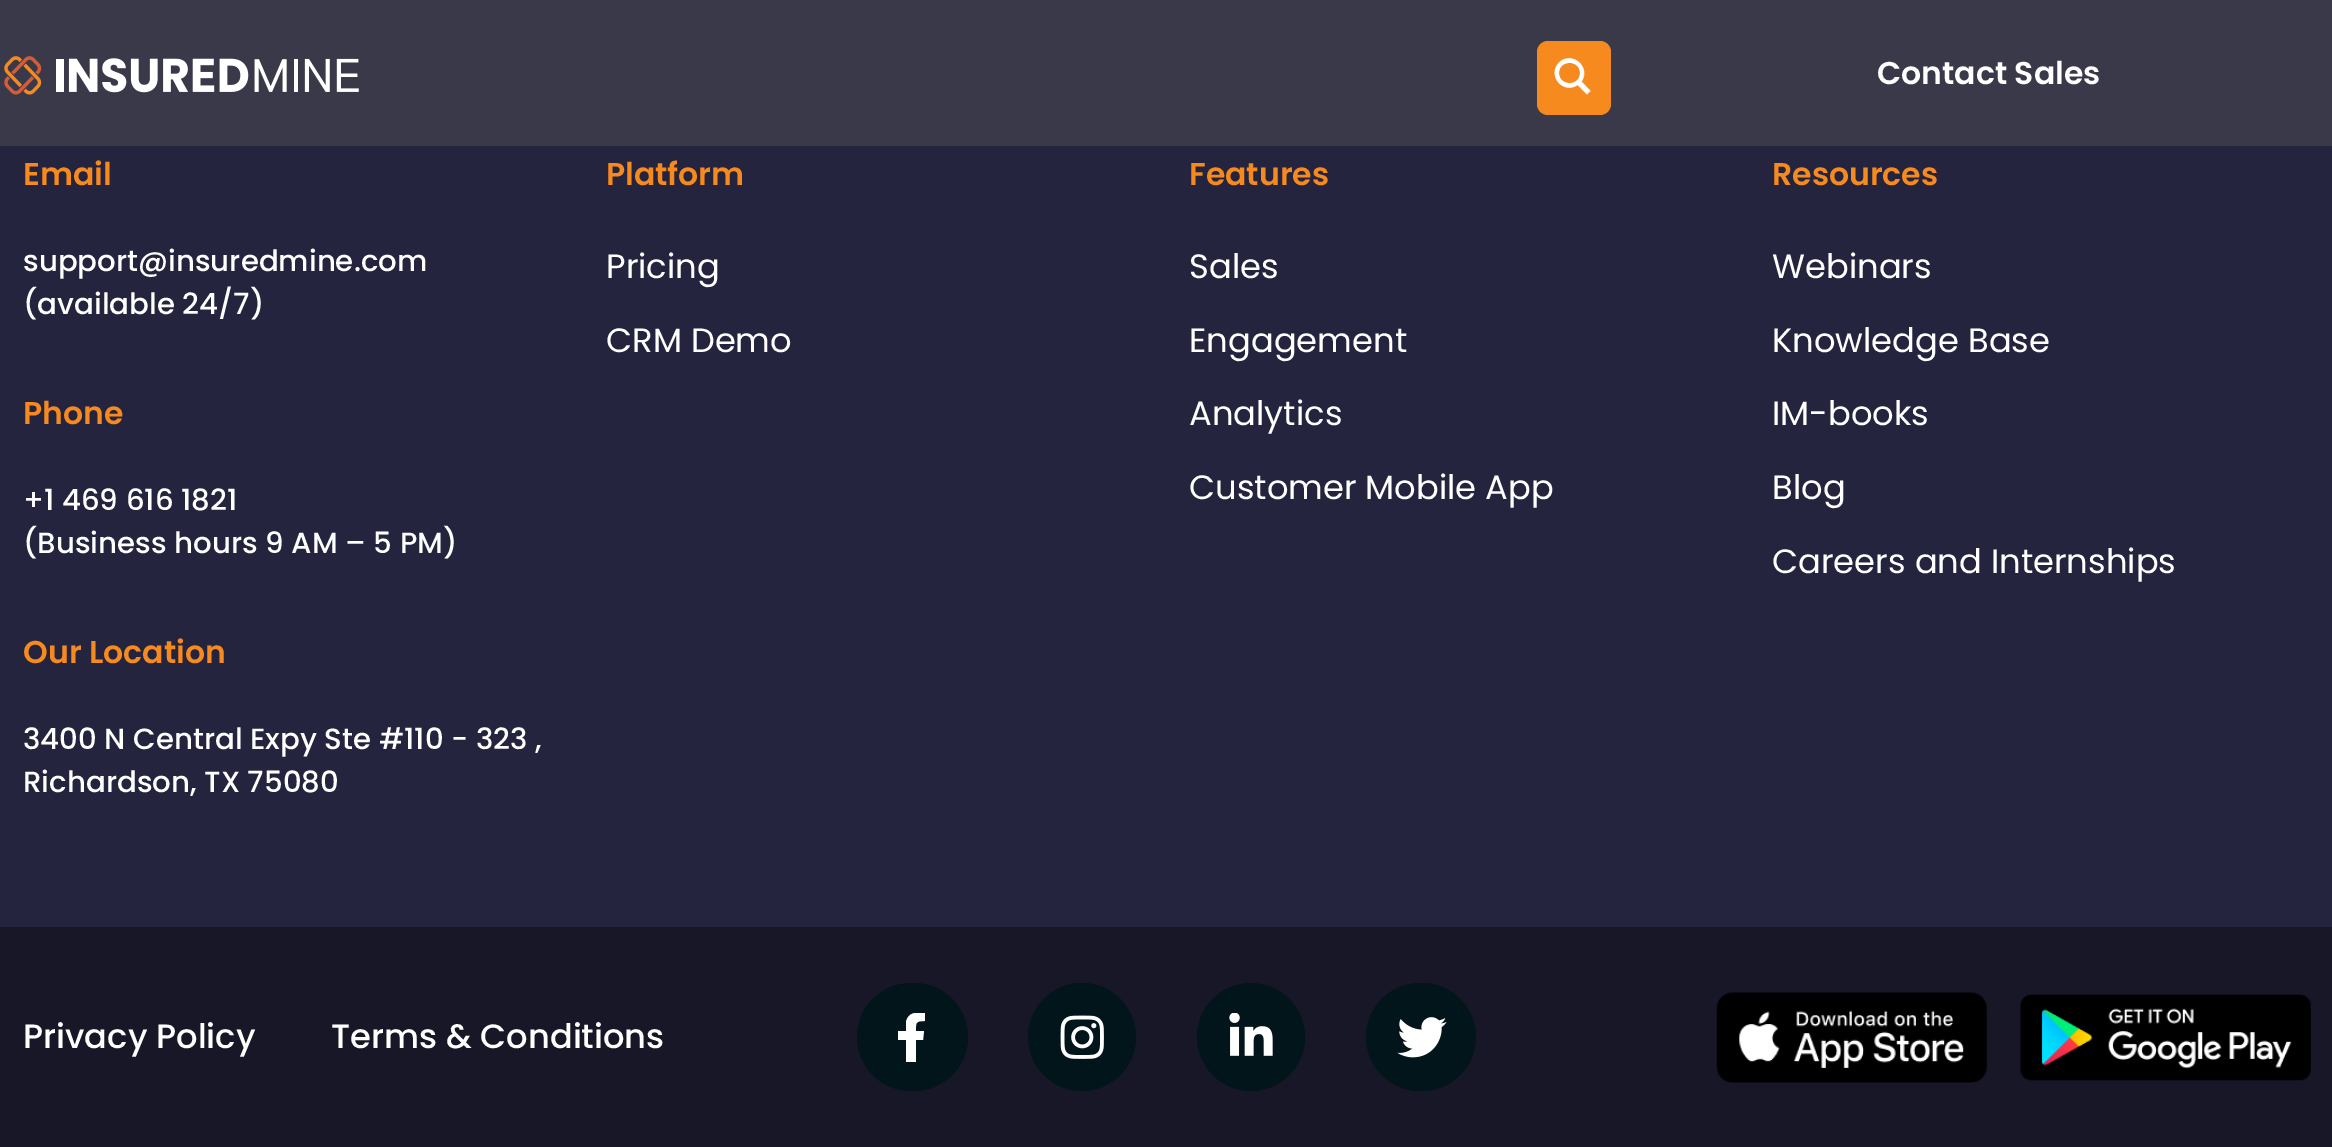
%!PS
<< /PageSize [2332 1147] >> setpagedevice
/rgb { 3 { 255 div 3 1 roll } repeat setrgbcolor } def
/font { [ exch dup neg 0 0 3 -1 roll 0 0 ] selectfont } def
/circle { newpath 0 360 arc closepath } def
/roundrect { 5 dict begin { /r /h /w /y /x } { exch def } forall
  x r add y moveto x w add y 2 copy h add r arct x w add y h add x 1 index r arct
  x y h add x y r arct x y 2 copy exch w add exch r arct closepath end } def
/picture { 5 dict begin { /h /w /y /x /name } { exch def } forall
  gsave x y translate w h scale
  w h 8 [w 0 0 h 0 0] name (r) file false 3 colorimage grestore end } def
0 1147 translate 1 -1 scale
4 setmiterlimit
36 36 63 rgb
0 0 2332 1147 rectfill
58 57 73 rgb
0 0 2332 146 rectfill
246 138 31 rgb
1537 41 74 74 11 roundrect fill
255 255 255 rgb
1590.5 91 moveto 1581.5 81.5 lineto 1591.5 67.5 1572 50 1559 62.5 curveto 1546.5 75.5 1563.5 95 1577.5 85 curveto 1587 94.5 lineto closepath 1559 73 moveto 1559 59.5 1580 59.5 1580 73 curveto 1580 86.5 1559 86.5 1559 73 curveto closepath fill
(img/1.rgb) 4 56 355 39 picture
23 23 40 rgb
0 927 2332 220 rectfill
1 21 26 rgb
857 983 111 108 54 roundrect fill
gsave
887 1013 49 49 rectclip
255 255 255 rgb
923 1040 moveto 924 1031 lineto 916 1031 lineto 916 1023 915 1021 925 1021 curveto 925 1013 lineto 917 1012 908 1012 906 1022 curveto 906 1031 lineto 898 1031 lineto 898 1040 lineto 906 1040 lineto 906 1062 lineto 916 1062 lineto 916 1040 lineto closepath fill
grestore
1082 1037 54 circle fill
(img/2.rgb) 1060 1015 44 44 picture
1251 1037 54 circle fill
(img/3.rgb) 1229 1013 44 43 picture
1366 983 110 108 54 roundrect fill
(img/4.rgb) 1397 1017 50 41 picture
(img/5.rgb) 1716 992 271 91 picture
(img/6.rgb) 2020 994 291 87 picture
/Poppins-SemiBold 31.5 font
255 255 255 rgb
1877 84 moveto (Contact Sales) show
246 138 31 rgb
23 185 moveto (Email) show
/Poppins-Medium 29.25 font
255 255 255 rgb
23 271 moveto (support@insuredmine.com) show
23 314 moveto (\(available 24/7\)) show
/Poppins-SemiBold 31.5 font
246 138 31 rgb
23 424 moveto (Phone) show
/Poppins-Medium 29.25 font
255 255 255 rgb
23 510 moveto (+1 469 616 1821) show
23 553 moveto (\(Business hours 9 AM – 5 PM\)) show
/Poppins-SemiBold 31.5 font
246 138 31 rgb
23 663 moveto (Our Location) show
/Poppins-Medium 29.25 font
255 255 255 rgb
23 749 moveto (3400 N Central Expy Ste #110 - 323 ,) show
23 792 moveto (Richardson, TX 75080) show
/Poppins-SemiBold 31.5 font
246 138 31 rgb
606 185 moveto (Platform) show
/Poppins-Regular 33.75 font
255 255 255 rgb
606 278 moveto (Pricing) show
606 352 moveto (CRM Demo) show
/Poppins-SemiBold 31.5 font
246 138 31 rgb
1189 185 moveto (Features) show
/Poppins-Regular 33.75 font
255 255 255 rgb
[
  [(Sales) 1189 278]
  [(Engagement) 1189 352]
  [(Analytics) 1189 425]
  [(Customer Mobile App) 1189 499]
] { aload pop moveto show } forall
/Poppins-SemiBold 31.5 font
246 138 31 rgb
1772 185 moveto (Resources) show
/Poppins-Regular 33.75 font
255 255 255 rgb
[
  [(Webinars) 1772 278]
  [(Knowledge Base) 1772 352]
  [(IM-books) 1772 425]
  [(Blog) 1772 499]
  [(Careers and Internships) 1772 573]
] { aload pop moveto show } forall
/Poppins-Medium 33.75 font
23 1048 moveto (Privacy Policy) show
331 1048 moveto (Terms & Conditions) show
showpage
